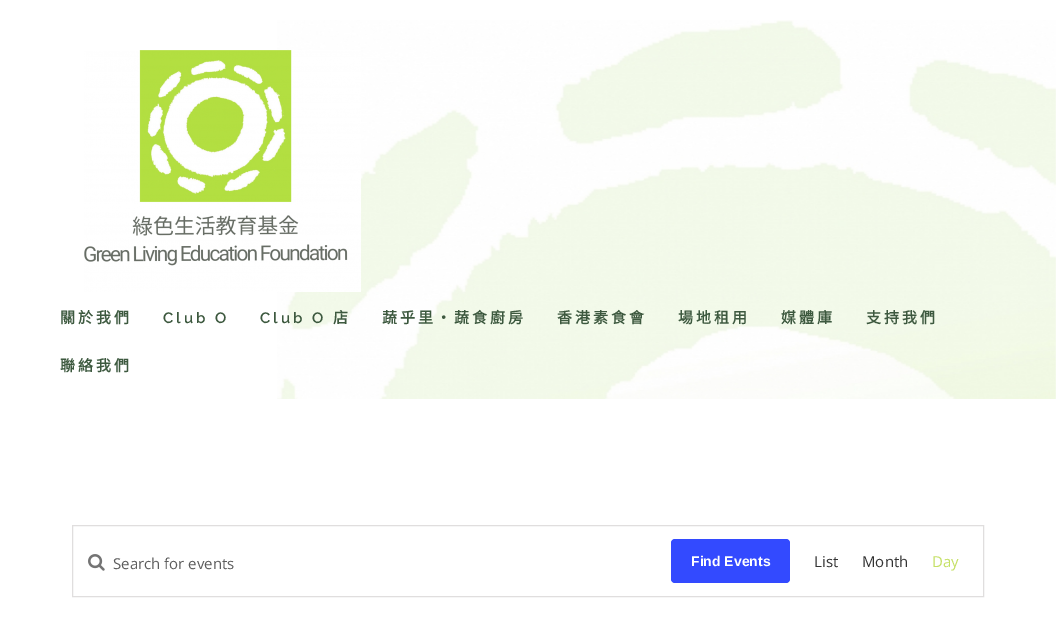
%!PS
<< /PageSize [1056 625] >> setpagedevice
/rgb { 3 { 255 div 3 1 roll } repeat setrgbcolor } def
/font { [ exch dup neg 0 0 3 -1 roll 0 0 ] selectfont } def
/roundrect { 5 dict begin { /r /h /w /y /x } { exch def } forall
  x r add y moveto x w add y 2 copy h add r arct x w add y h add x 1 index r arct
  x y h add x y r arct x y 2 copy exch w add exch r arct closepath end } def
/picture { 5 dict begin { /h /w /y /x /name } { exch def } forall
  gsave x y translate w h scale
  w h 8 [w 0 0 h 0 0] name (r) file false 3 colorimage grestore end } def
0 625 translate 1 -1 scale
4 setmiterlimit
255 255 255 rgb
0 0 1056 625 rectfill
(img/1.rgb) 277 20 779 379 picture
(img/2.rgb) 84 50 277 242 picture
224 222 222 rgb
72.5 525.5 911 71 rectstroke
(img/3.rgb) 88 554 17 17 picture
51 74 255 rgb
671 539 119 44 4 roundrect fill
/NotoSansCJKTC-Bold 15 font
61 89 63 rgb
60 323 moveto 3 0 (關於我們) ashow
/Raleway-SemiBold 15 font
163 323 moveto 3 0 (Club O) ashow
260 323 moveto 3 0 (Club O) ashow
/NotoSansCJKTC-Bold 15 font
333 323 moveto 3 0 (店) ashow
382 323 moveto 3 0 (蔬乎里・蔬食廚房) ashow
557 323 moveto 3 0 (香港素食會) ashow
678 323 moveto 3 0 (場地租用) ashow
781 323 moveto 3 0 (媒體庫) ashow
866 323 moveto 3 0 (支持我們) ashow
60 371 moveto 3 0 (聯絡我們) ashow
/OpenSans-Regular 15 font
93 93 93 rgb
113 569 moveto (Search for events) show
/LiberationSans-Bold 14 font
255 255 255 rgb
691 566 moveto (Find Events) show
/OpenSans-Regular 15 font
51 51 51 rgb
814 567 moveto (List) show
862 567 moveto (Month) show
197 224 100 rgb
932 567 moveto (Day) show
showpage
